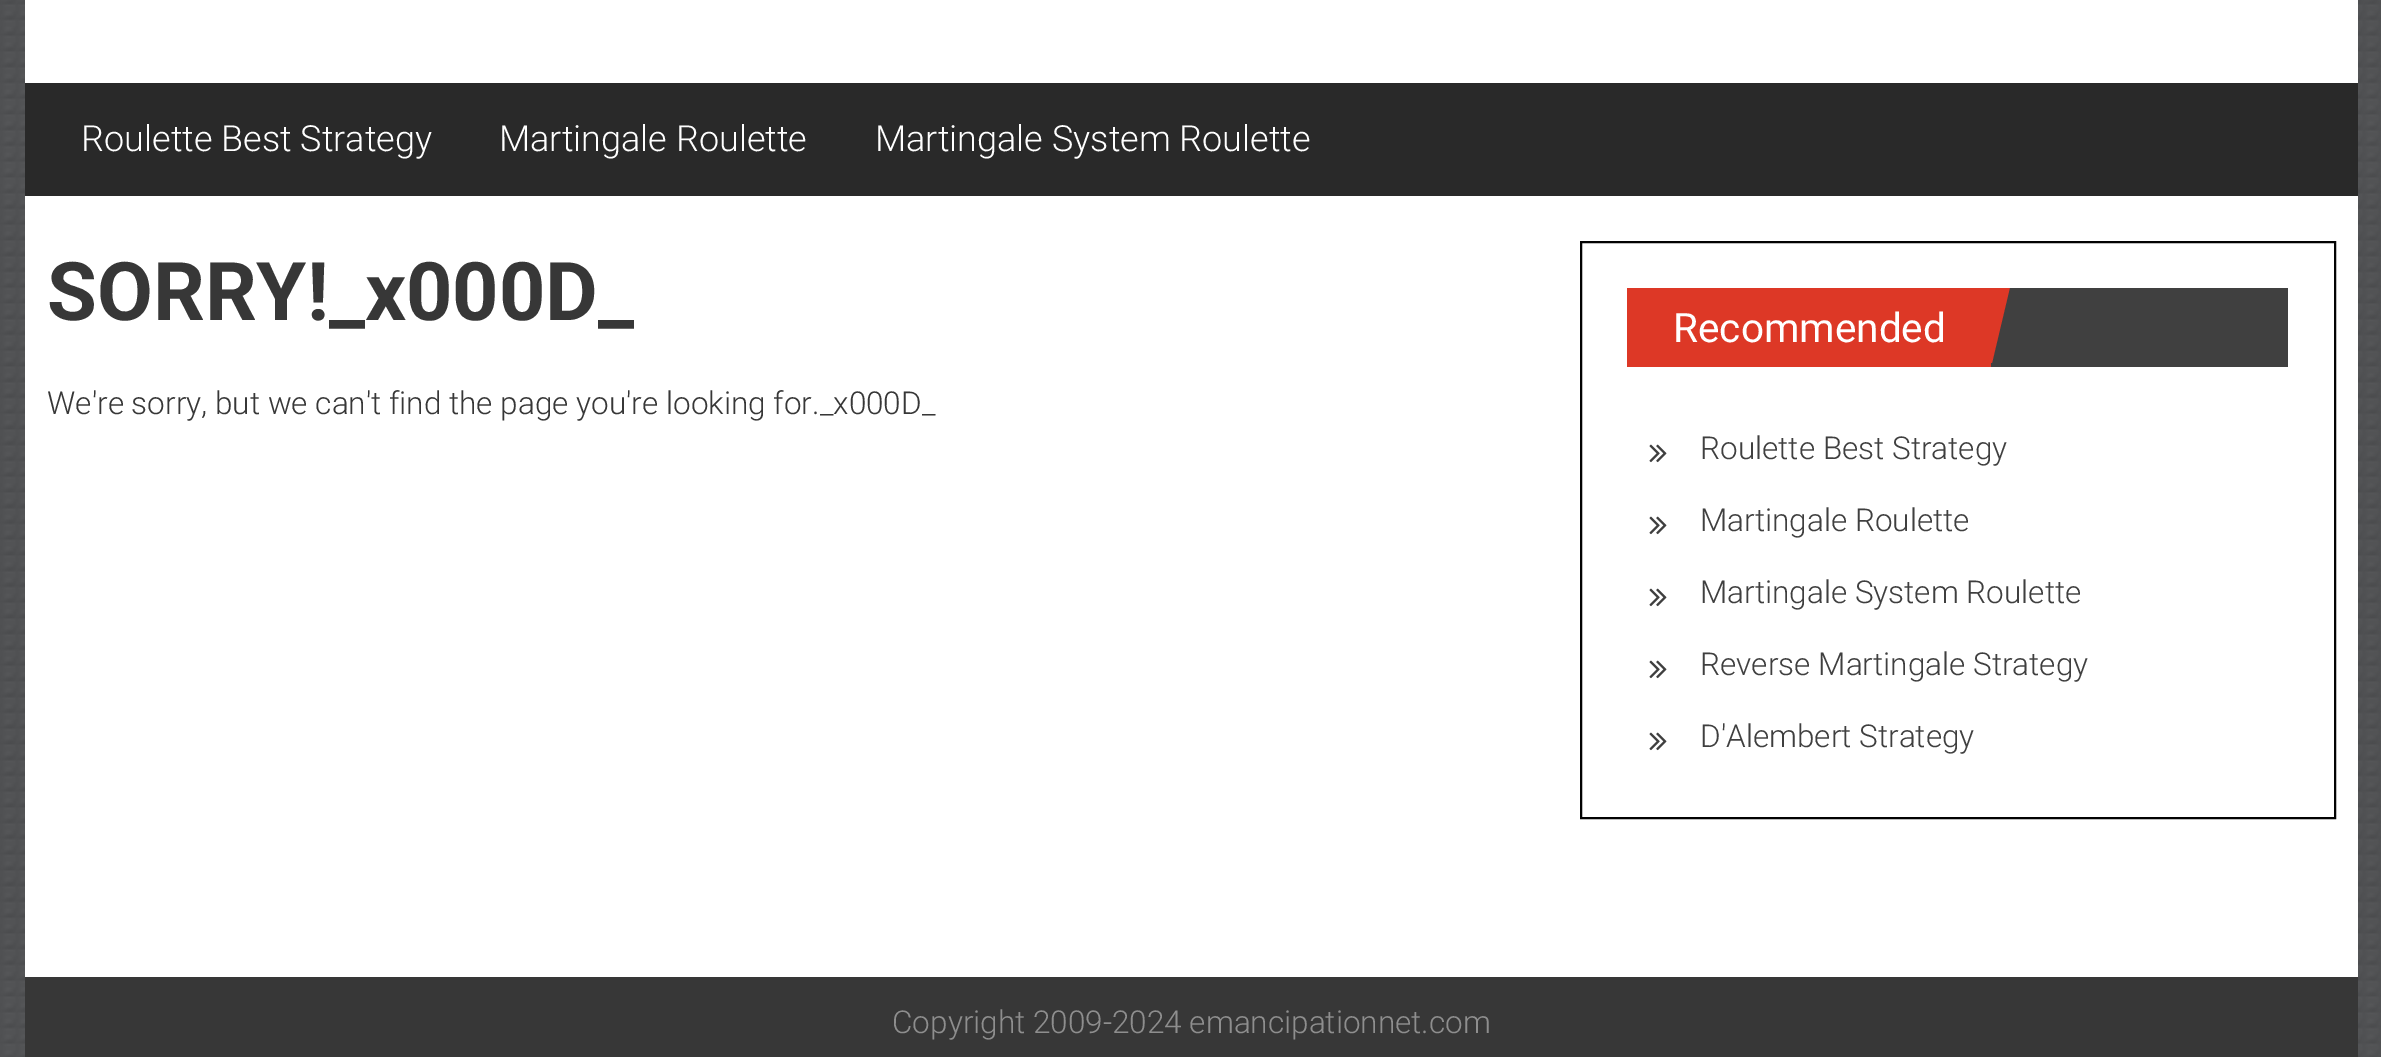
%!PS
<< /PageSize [2381 1057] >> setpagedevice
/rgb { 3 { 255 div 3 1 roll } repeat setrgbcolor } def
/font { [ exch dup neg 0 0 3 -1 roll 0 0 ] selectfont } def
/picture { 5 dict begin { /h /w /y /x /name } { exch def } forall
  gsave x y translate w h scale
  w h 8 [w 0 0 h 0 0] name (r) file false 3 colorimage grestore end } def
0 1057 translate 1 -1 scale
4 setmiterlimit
255 255 255 rgb
0 0 2381 1057 rectfill
(img/1.rgb) 0 0 2381 1057 picture
25 0 2333 977 rectfill
41 41 41 rgb
25 83 2333 113 rectfill
2 2 2 rgb
2 setlinewidth
1581 242 754 576 rectstroke
64 64 64 rgb
1991 288 297 79 rectfill
221 56 38 rgb
1627 288 364 79 rectfill
gsave
1627 288 661 79 rectclip
2010 287 moveto 1992 363 lineto 1915 346 lineto 1933 269 lineto closepath fill
grestore
(img/2.rgb) 1649 444 18 19 picture
(img/2.rgb) 1649 516 18 19 picture
(img/2.rgb) 1649 588 18 19 picture
(img/2.rgb) 1649 660 18 19 picture
(img/2.rgb) 1649 732 18 19 picture
55 55 55 rgb
25 977 2333 80 rectfill
/Roboto-Light 36 font
255 255 255 rgb
[
  [(Roulette Best Strategy) 81 151]
  [(Martingale Roulette) 499 151]
  [(Martingale System Roulette) 875 151]
] { aload pop moveto show } forall
/Roboto-Bold 81 font
55 55 55 rgb
47 320 moveto (SORRY!_x000D_) show
/Roboto-Light 31.5 font
47 414 moveto (We're sorry, but we can't find the page you're looking for._x000D_) show
/Roboto-Regular 40.5 font
255 255 255 rgb
1673 342 moveto (Recommended) show
/Roboto-Light 31.5 font
63 63 63 rgb
[
  [(Roulette Best Strategy) 1700 459]
  [(Martingale Roulette) 1700 531]
  [(Martingale System Roulette) 1700 603]
  [(Reverse Martingale Strategy) 1700 675]
  [(D'Alembert Strategy) 1700 747]
] { aload pop moveto show } forall
142 142 142 rgb
892 1033 moveto (Copyright 2009-2024 emancipationnet.com) show
showpage
